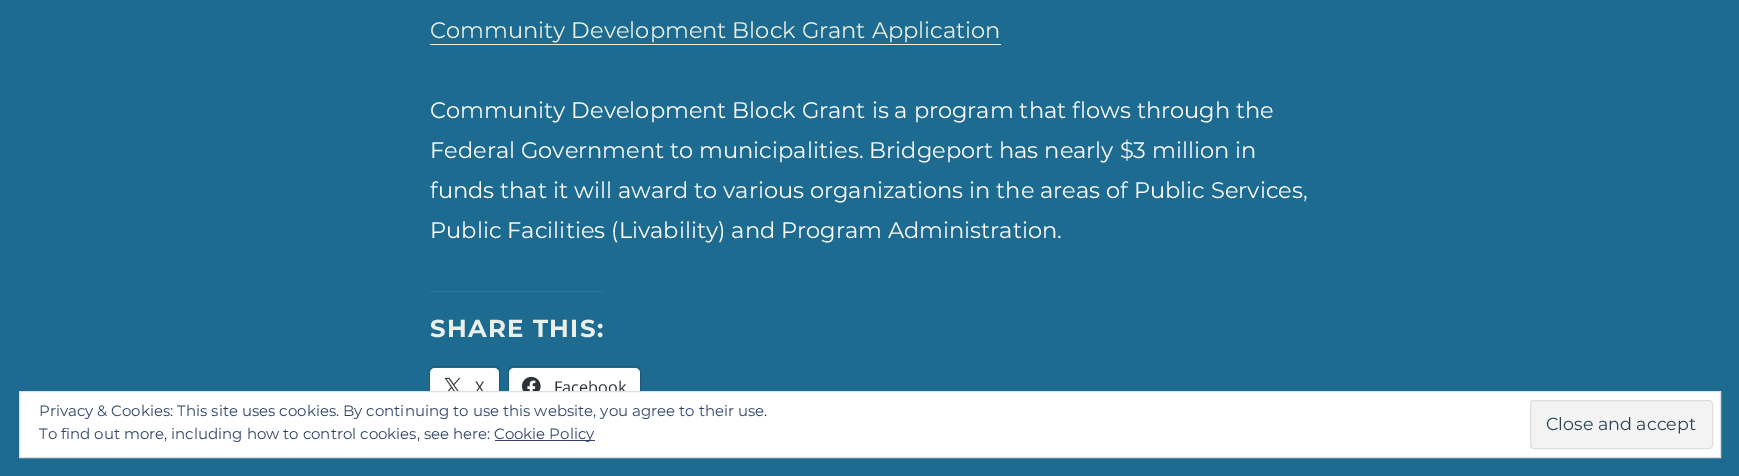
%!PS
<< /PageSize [1739 476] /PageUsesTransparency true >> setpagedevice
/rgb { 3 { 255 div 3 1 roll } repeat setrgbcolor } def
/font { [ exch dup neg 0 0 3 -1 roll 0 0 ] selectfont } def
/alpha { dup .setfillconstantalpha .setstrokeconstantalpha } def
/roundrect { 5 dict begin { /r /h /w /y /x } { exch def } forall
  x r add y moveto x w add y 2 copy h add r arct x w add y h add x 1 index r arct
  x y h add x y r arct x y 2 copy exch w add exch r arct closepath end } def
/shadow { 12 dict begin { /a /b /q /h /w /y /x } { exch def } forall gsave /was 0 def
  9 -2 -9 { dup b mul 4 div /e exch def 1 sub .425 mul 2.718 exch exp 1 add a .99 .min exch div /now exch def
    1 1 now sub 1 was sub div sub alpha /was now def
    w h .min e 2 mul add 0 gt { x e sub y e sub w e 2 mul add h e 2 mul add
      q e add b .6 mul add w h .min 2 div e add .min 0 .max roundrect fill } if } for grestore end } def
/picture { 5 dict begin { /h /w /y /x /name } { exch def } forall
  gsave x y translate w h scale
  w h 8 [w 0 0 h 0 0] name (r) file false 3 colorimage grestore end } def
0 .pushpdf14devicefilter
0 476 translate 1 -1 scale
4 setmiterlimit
30 107 145 rgb
0 0 1739 476 rectfill
234 240 228 rgb
430 44 571 1 rectfill
32 121 166 rgb
430 291 174 1 rectfill
26 94 128 rgb
429.5 366.5 70 39 5.5 roundrect stroke
0 0 0 rgb
430 369 69 37 5 1 0.12 shadow
255 255 255 rgb
430 368 69 37 5 roundrect fill
(img/1.rgb) 444 377 17 14 picture
26 94 128 rgb
508.5 366.5 132 39 5.5 roundrect stroke
0 0 0 rgb
509 369 131 37 5 1 0.12 shadow
255 255 255 rgb
509 368 131 37 5 roundrect fill
(img/2.rgb) 521 376 20 15 picture
/Montserrat-Regular 22.5 font
234 240 228 rgb
430 38 moveto (Community Development Block Grant Application) show
255 255 255 rgb
[
  [(Community Development Block Grant is a program that flows through the) 430 118]
  [(Federal Government to municipalities. Bridgeport has nearly $3 million in) 430 158]
  [(funds that it will award to various organizations in the areas of Public Services,) 430 198]
  [(Public Facilities \(Livability\) and Program Administration.) 430 238]
] { aload pop moveto show } forall
/Montserrat-Bold 24.5 font
234 239 234 rgb
430 337 moveto 1.25 0 (SHARE THIS:) ashow
/OpenSans-Regular 16.25 font
44 51 56 rgb
475 393 moveto (X) show
554 393 moveto (Facebook) show
255 255 255 rgb
19.5 391.5 moveto 1720.5 391.5 lineto 1720.5 457.5 lineto 19.5 457.5 lineto closepath gsave fill grestore
222 222 222 rgb
stroke
/Montserrat-Regular 15 font
46 68 103 rgb
39 416 moveto (Privacy & Cookies: This site uses cookies. By continuing to use this website, you agree to their use.) show
39 439 moveto (To find out more, including how to control cookies, see here:) show
495 440 100 1 rectfill
494 439 moveto (Cookie Policy) show
243 243 243 rgb
1530.5 400.5 182 48 3.5 roundrect gsave fill grestore
222 222 222 rgb
stroke
/Montserrat-Regular 17.5 font
46 68 83 rgb
1546 430 moveto (Close and accept) show
.poppdf14devicefilter showpage
